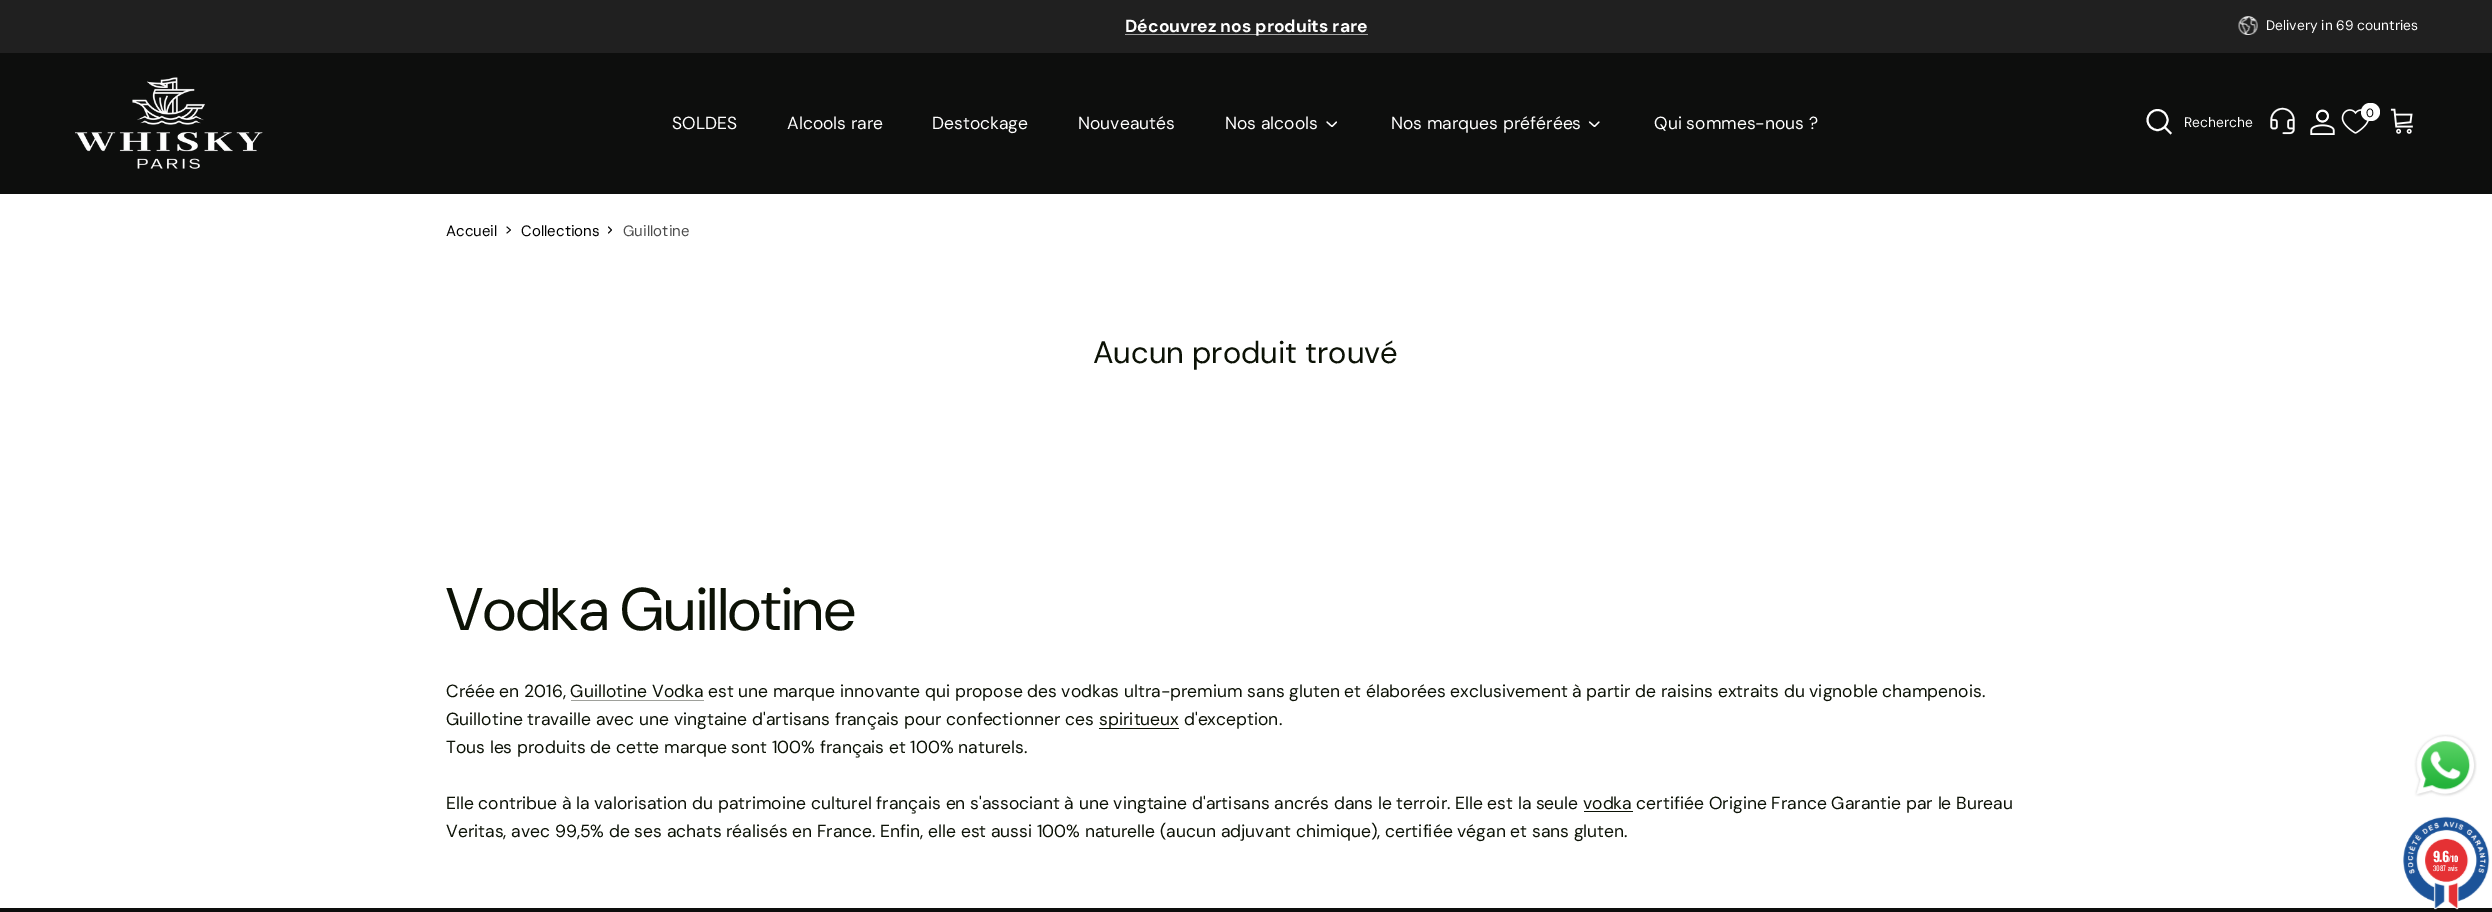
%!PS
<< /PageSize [2492 912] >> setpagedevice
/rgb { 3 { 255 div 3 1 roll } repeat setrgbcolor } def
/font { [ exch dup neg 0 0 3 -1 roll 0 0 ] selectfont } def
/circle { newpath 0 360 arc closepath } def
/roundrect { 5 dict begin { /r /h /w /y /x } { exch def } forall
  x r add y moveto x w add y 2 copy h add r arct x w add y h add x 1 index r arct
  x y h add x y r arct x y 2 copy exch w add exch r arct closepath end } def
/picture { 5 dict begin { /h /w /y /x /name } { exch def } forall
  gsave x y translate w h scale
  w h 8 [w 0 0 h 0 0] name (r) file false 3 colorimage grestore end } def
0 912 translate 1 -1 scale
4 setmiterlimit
255 255 255 rgb
0 0 2492 912 rectfill
32 32 32 rgb
0 0 2492 53 rectfill
166 166 166 rgb
1125 34 243 1 rectfill
(img/1.rgb) 2238 16 20 19 picture
13 14 13 rgb
0 53 2492 141 rectfill
(img/2.rgb) 75 77 188 92 picture
255 255 255 rgb
1.2 setlinewidth
1 setlinecap
1 setlinejoin
1327 122 moveto 1332 126.5 lineto 1336.5 122 lineto stroke
1589.5 122 moveto 1594.5 126.5 lineto 1599 122 lineto stroke
1.9 setlinewidth
0 setlinecap
0 setlinejoin
2157.5 120 10 circle stroke
2 setlinecap
2165 127.5 moveto 2170.5 133 lineto stroke
(img/3.rgb) 2270 107 25 28 picture
(img/4.rgb) 2310 109 25 26 picture
(img/5.rgb) 2341 109 28 25 picture
2361 103 19 18 9 roundrect fill
(img/6.rgb) 2390 108 23 26 picture
0 0 0 rgb
0.8 setlinewidth
1 setlinecap
1 setlinejoin
507 233 moveto 510.5 230 lineto 507 227 lineto stroke
608.5 233 moveto 611.5 230 lineto 608.5 227 lineto stroke
12 18 6 rgb
1099 728 80 1 rectfill
1584 811 49 1 rectfill
(img/7.rgb) 2414 734 63 63 picture
13 14 13 rgb
0 908 2492 4 rectfill
(img/8.rgb) 2403 816 87 94 picture
/DMSans-Bold 17.5 font
255 255 255 rgb
1125 32 moveto (Découvrez nos produits rare) show
/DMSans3-Regular 13.75 font
2266 30 moveto (Delivery in 69 countries) show
/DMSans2-Regular 17.5 font
[
  [(SOLDES) 672 129]
  [(Alcools rare) 787 129]
  [(Destockage) 932 129]
  [(Nouveautés) 1078 129]
  [(Nos alcools) 1225 129]
  [(Nos marques préférées) 1391 129]
  [(Qui sommes-nous ?) 1654 129]
] { aload pop moveto show } forall
/DMSans3-Regular 13.75 font
2184 127 moveto (Recherche) show
/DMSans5-Regular 12 font
0 0 0 rgb
2366 117 moveto (0) show
/DMSans3-Regular 15 font
446 236 moveto (Accueil) show
521 236 moveto (Collections) show
77 77 77 rgb
623 236 moveto (Guillotine) show
/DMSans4-Regular 31 font
12 18 6 rgb
1093 363 moveto (Aucun produit trouvé) show
/DMSans-Regular 60 font
446 630 moveto (Vodka Guillotine) show
/DMSans2-Regular 17.5 font
446 697 moveto (Créée en 2016, Guillotine Vodka est une marque innovante qui propose des vodkas ultra-premium sans gluten et élaborées exclusivement à partir de raisins extraits du vignoble champenois.) show
158 160 155 rgb
571 700 133 1 rectfill
12 18 6 rgb
[
  [(Guillotine travaille avec une vingtaine d'artisans français pour confectionner ces) 446 725]
  [(spiritueux d'exception.) 1099 725]
  [(Tous les produits de cette marque sont 100% français et 100% naturels.) 446 753]
  [(Elle contribue à la valorisation du patrimoine culturel français en s'associant à une vingtaine d'artisans ancrés dans le terroir. Elle est la seule vodka certifiée Origine France Garantie par le Bureau) 446 809]
  [(Veritas, avec 99,5% de ses achats réalisés en France. Enfin, elle est aussi 100% naturelle \(aucun adjuvant chimique\), certifiée végan et sans gluten.) 446 837]
] { aload pop moveto show } forall
/Oswald-Bold 13.75 font
255 255 255 rgb
2433 862 moveto -1 0 (9.6) ashow
/Oswald-Bold 8 font
2448 862 moveto (/10) show
/Oswald-Regular 7 font
2433 871 moveto (3087 avis) show
showpage
